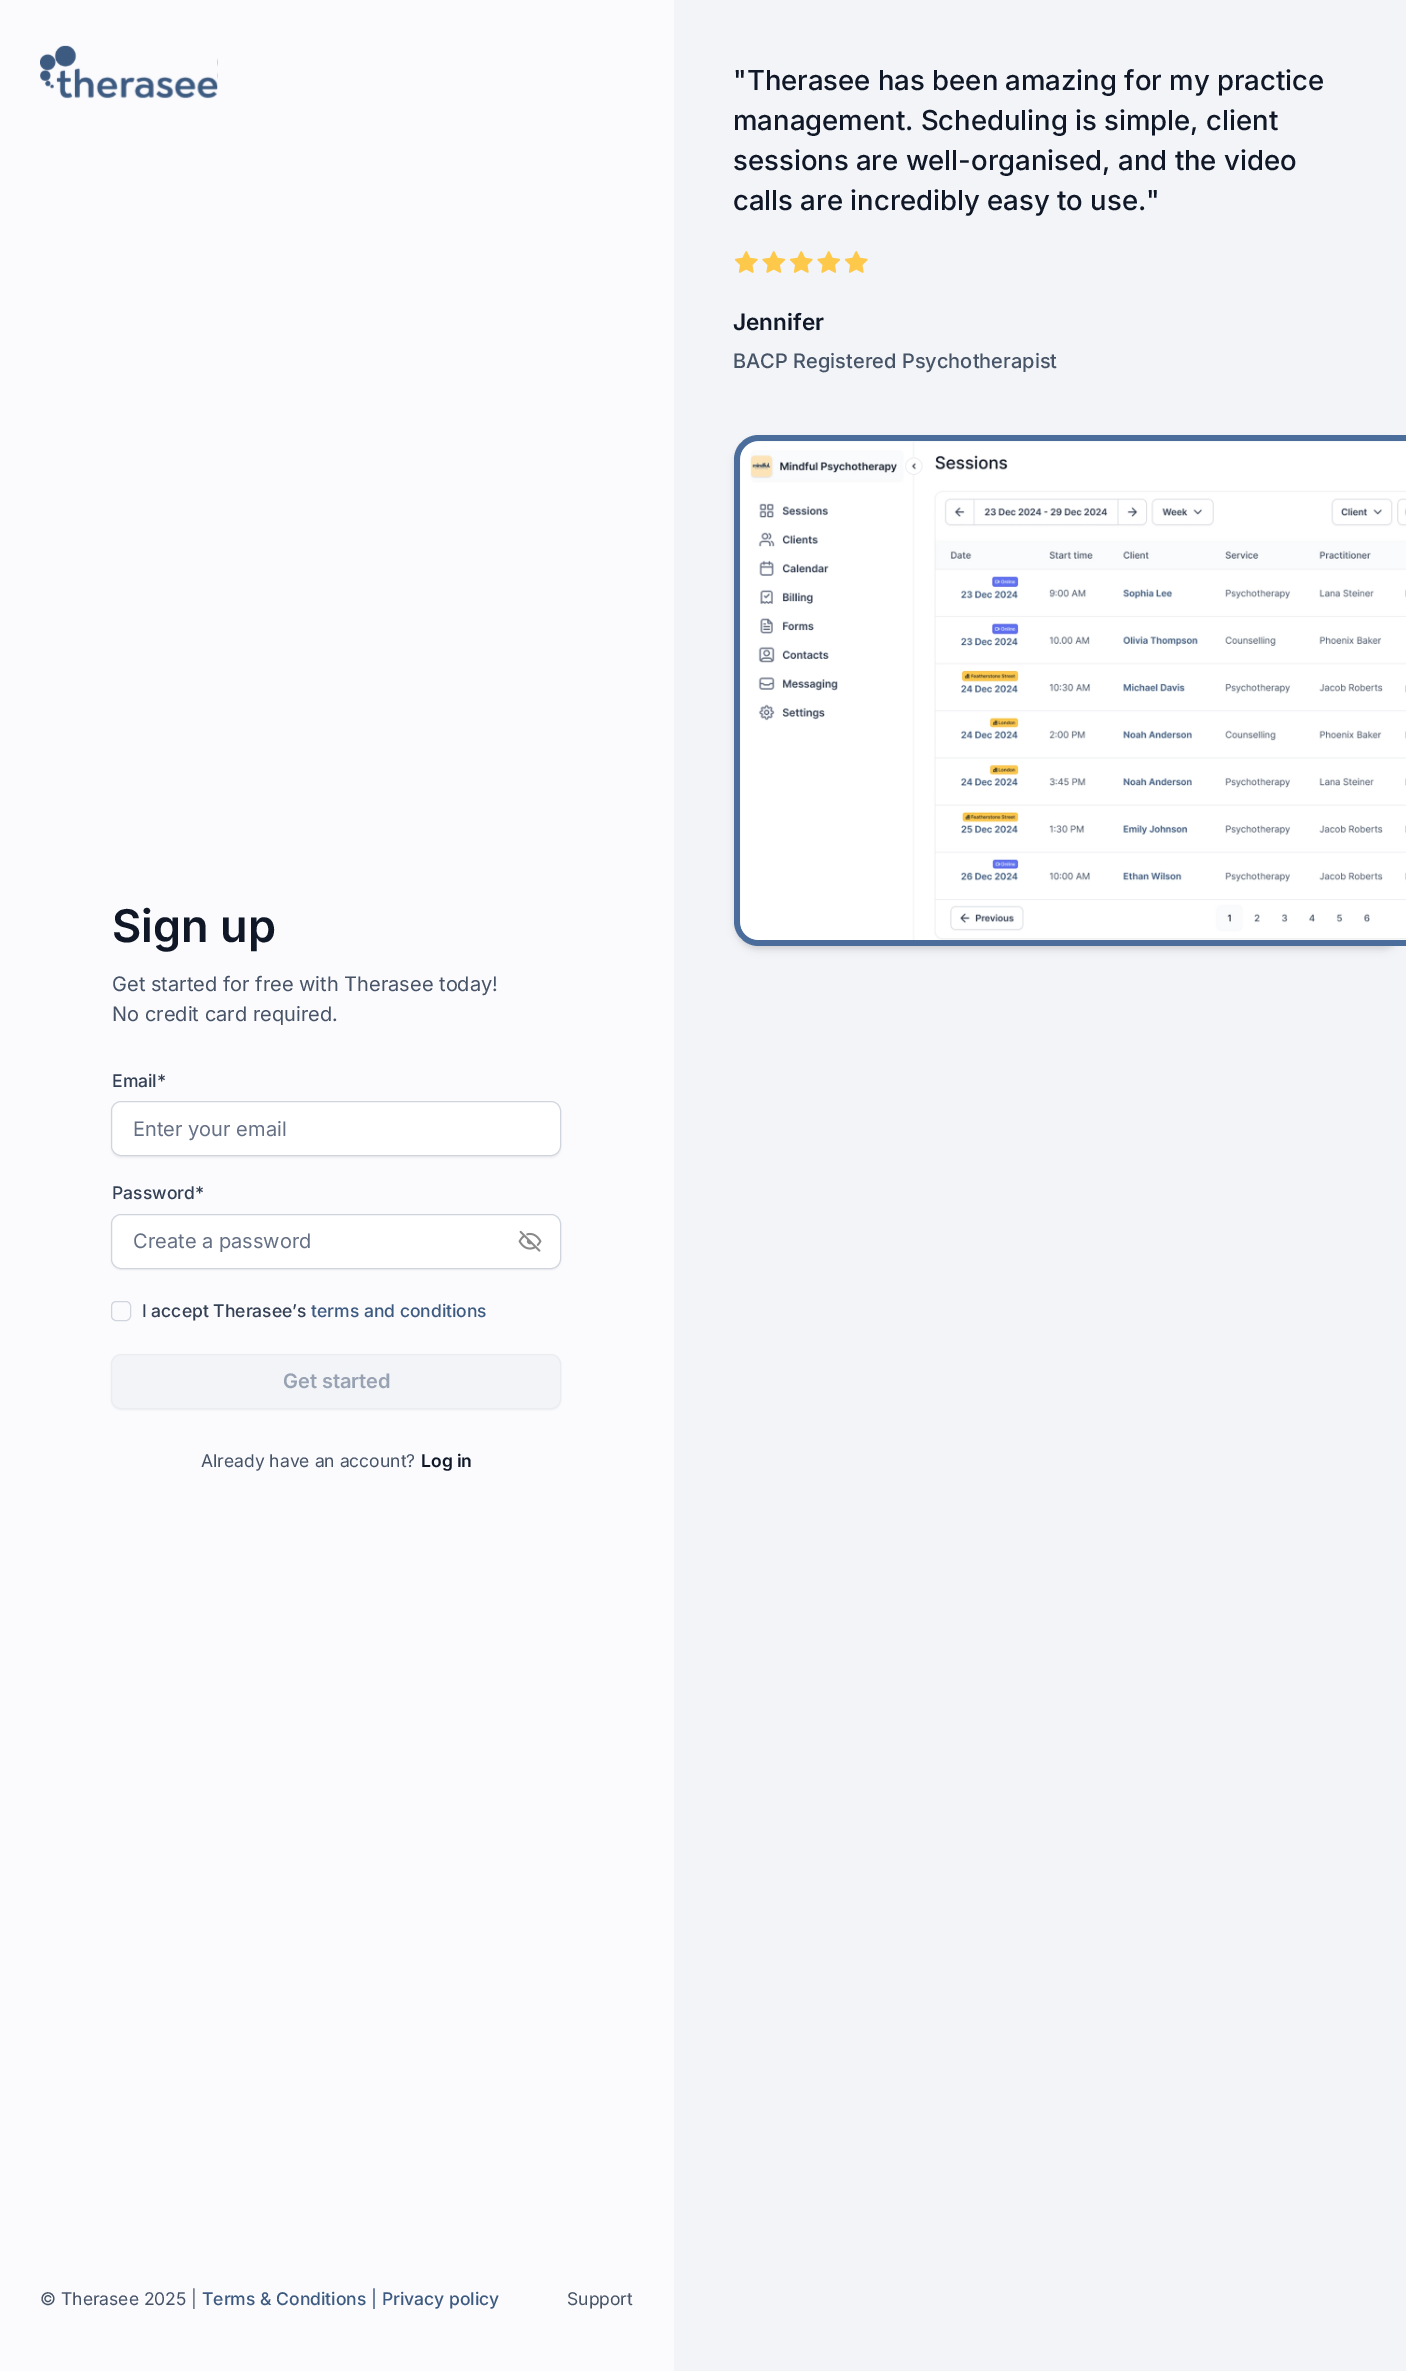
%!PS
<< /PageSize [1406 2371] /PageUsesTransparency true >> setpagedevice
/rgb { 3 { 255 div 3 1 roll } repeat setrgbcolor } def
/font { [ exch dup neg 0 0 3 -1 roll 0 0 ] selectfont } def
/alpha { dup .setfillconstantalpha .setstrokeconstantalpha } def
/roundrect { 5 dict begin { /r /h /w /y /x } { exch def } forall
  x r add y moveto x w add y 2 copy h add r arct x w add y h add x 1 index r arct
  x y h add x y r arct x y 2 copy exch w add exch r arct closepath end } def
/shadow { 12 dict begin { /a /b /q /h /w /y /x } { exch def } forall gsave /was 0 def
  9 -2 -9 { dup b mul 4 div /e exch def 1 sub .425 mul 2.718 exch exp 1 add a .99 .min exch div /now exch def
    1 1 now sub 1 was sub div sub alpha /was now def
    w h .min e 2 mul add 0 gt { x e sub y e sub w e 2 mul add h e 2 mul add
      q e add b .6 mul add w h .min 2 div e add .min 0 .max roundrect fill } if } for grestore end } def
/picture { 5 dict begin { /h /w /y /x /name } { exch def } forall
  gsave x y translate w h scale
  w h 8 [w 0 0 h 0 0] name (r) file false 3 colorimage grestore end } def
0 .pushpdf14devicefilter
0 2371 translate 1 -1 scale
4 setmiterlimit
251 251 254 rgb
0 0 1406 2371 rectfill
242 244 247 rgb
674 0 732 2371 rectfill
(img/1.rgb) 734 251 24 22 picture
(img/2.rgb) 762 251 24 22 picture
(img/1.rgb) 789 251 24 22 picture
(img/2.rgb) 817 251 24 22 picture
(img/1.rgb) 844 251 24 22 picture
0 0 0 rgb
735 439 670 509 24 2.5 0.06 shadow
735 441 670 509 24 4 0.1 shadow
74 109 156 rgb
759 435 moveto 745 435 734 446 734 460 curveto 734 921 lineto 734 935 745 946 759 946 curveto 1406 946 lineto 1406 940 lineto 759 940 lineto 748 940 740 932 740 921 curveto 740 460 lineto 740 450 748 441 759 441 curveto 1406 441 lineto 1406 435 lineto closepath fill
(img/3.rgb) 740 441 666 499 picture
(img/4.rgb) 40 45 178 54 picture
16 24 40 rgb
111 1103 450 55 10 1 0.05 shadow
255 255 255 rgb
111.5 1101.5 449 54 9.5 roundrect gsave fill grestore
208 213 221 rgb
stroke
16 24 40 rgb
111 1215 450 55 10 1 0.05 shadow
255 255 255 rgb
111.5 1214.5 449 54 9.5 roundrect gsave fill grestore
208 213 221 rgb
stroke
(img/5.rgb) 518 1230 24 22 picture
111.5 1301.5 19 19 4.5 roundrect stroke
16 24 40 rgb
111 1355 450 55 10 1 0.05 shadow
242 244 247 rgb
111.5 1354.5 449 54 9.5 roundrect gsave fill grestore
234 236 240 rgb
stroke
/Inter-Medium 27.5 font
16 24 40 rgb
[
  [("Therasee has been amazing for my practice) 733 90]
  [(management. Scheduling is simple, client) 733 130]
  [(sessions are well-organised, and the video) 733 170]
  [(calls are incredibly easy to use.") 733 210]
] { aload pop moveto show } forall
/Inter-SemiBold 22.5 font
733 330 moveto (Jennifer) show
/Inter-Medium 20 font
71 84 103 rgb
733 368 moveto (BACP Registered Psychotherapist) show
/Inter-SemiBold 45 font
16 24 40 rgb
112 942 moveto (Sign up) show
/Inter-Regular 20 font
71 84 103 rgb
112 991 moveto (Get started for free with Therasee today!) show
112 1021 moveto (No credit card required.) show
/Inter-Medium 17.5 font
52 64 84 rgb
112 1087 moveto (Email*) show
/Inter-Regular 20 font
102 112 133 rgb
133 1136 moveto (Enter your email) show
/Inter-Medium 17.5 font
52 64 84 rgb
112 1199 moveto (Password*) show
/Inter-Regular 20 font
102 112 133 rgb
133 1248 moveto (Create a password) show
/Inter-Medium 17.5 font
52 64 84 rgb
142 1317 moveto (I accept Therasee’s) show
61 90 128 rgb
311 1317 moveto (terms and conditions) show
/Inter-SemiBold 20 font
152 162 179 rgb
283 1388 moveto (Get started) show
/Inter-Regular 17.5 font
71 84 103 rgb
201 1467 moveto (Already have an account?) show
/Inter-SemiBold 17.5 font
16 24 40 rgb
421 1467 moveto (Log in) show
/Inter-Regular 17.5 font
71 84 103 rgb
40 2305 moveto (© Therasee 2025 |) show
/Inter-Medium 17.5 font
61 90 128 rgb
202 2305 moveto (Terms & Conditions | Privacy policy) show
/Inter-Regular 17.5 font
71 84 103 rgb
567 2305 moveto (Support) show
.poppdf14devicefilter showpage
